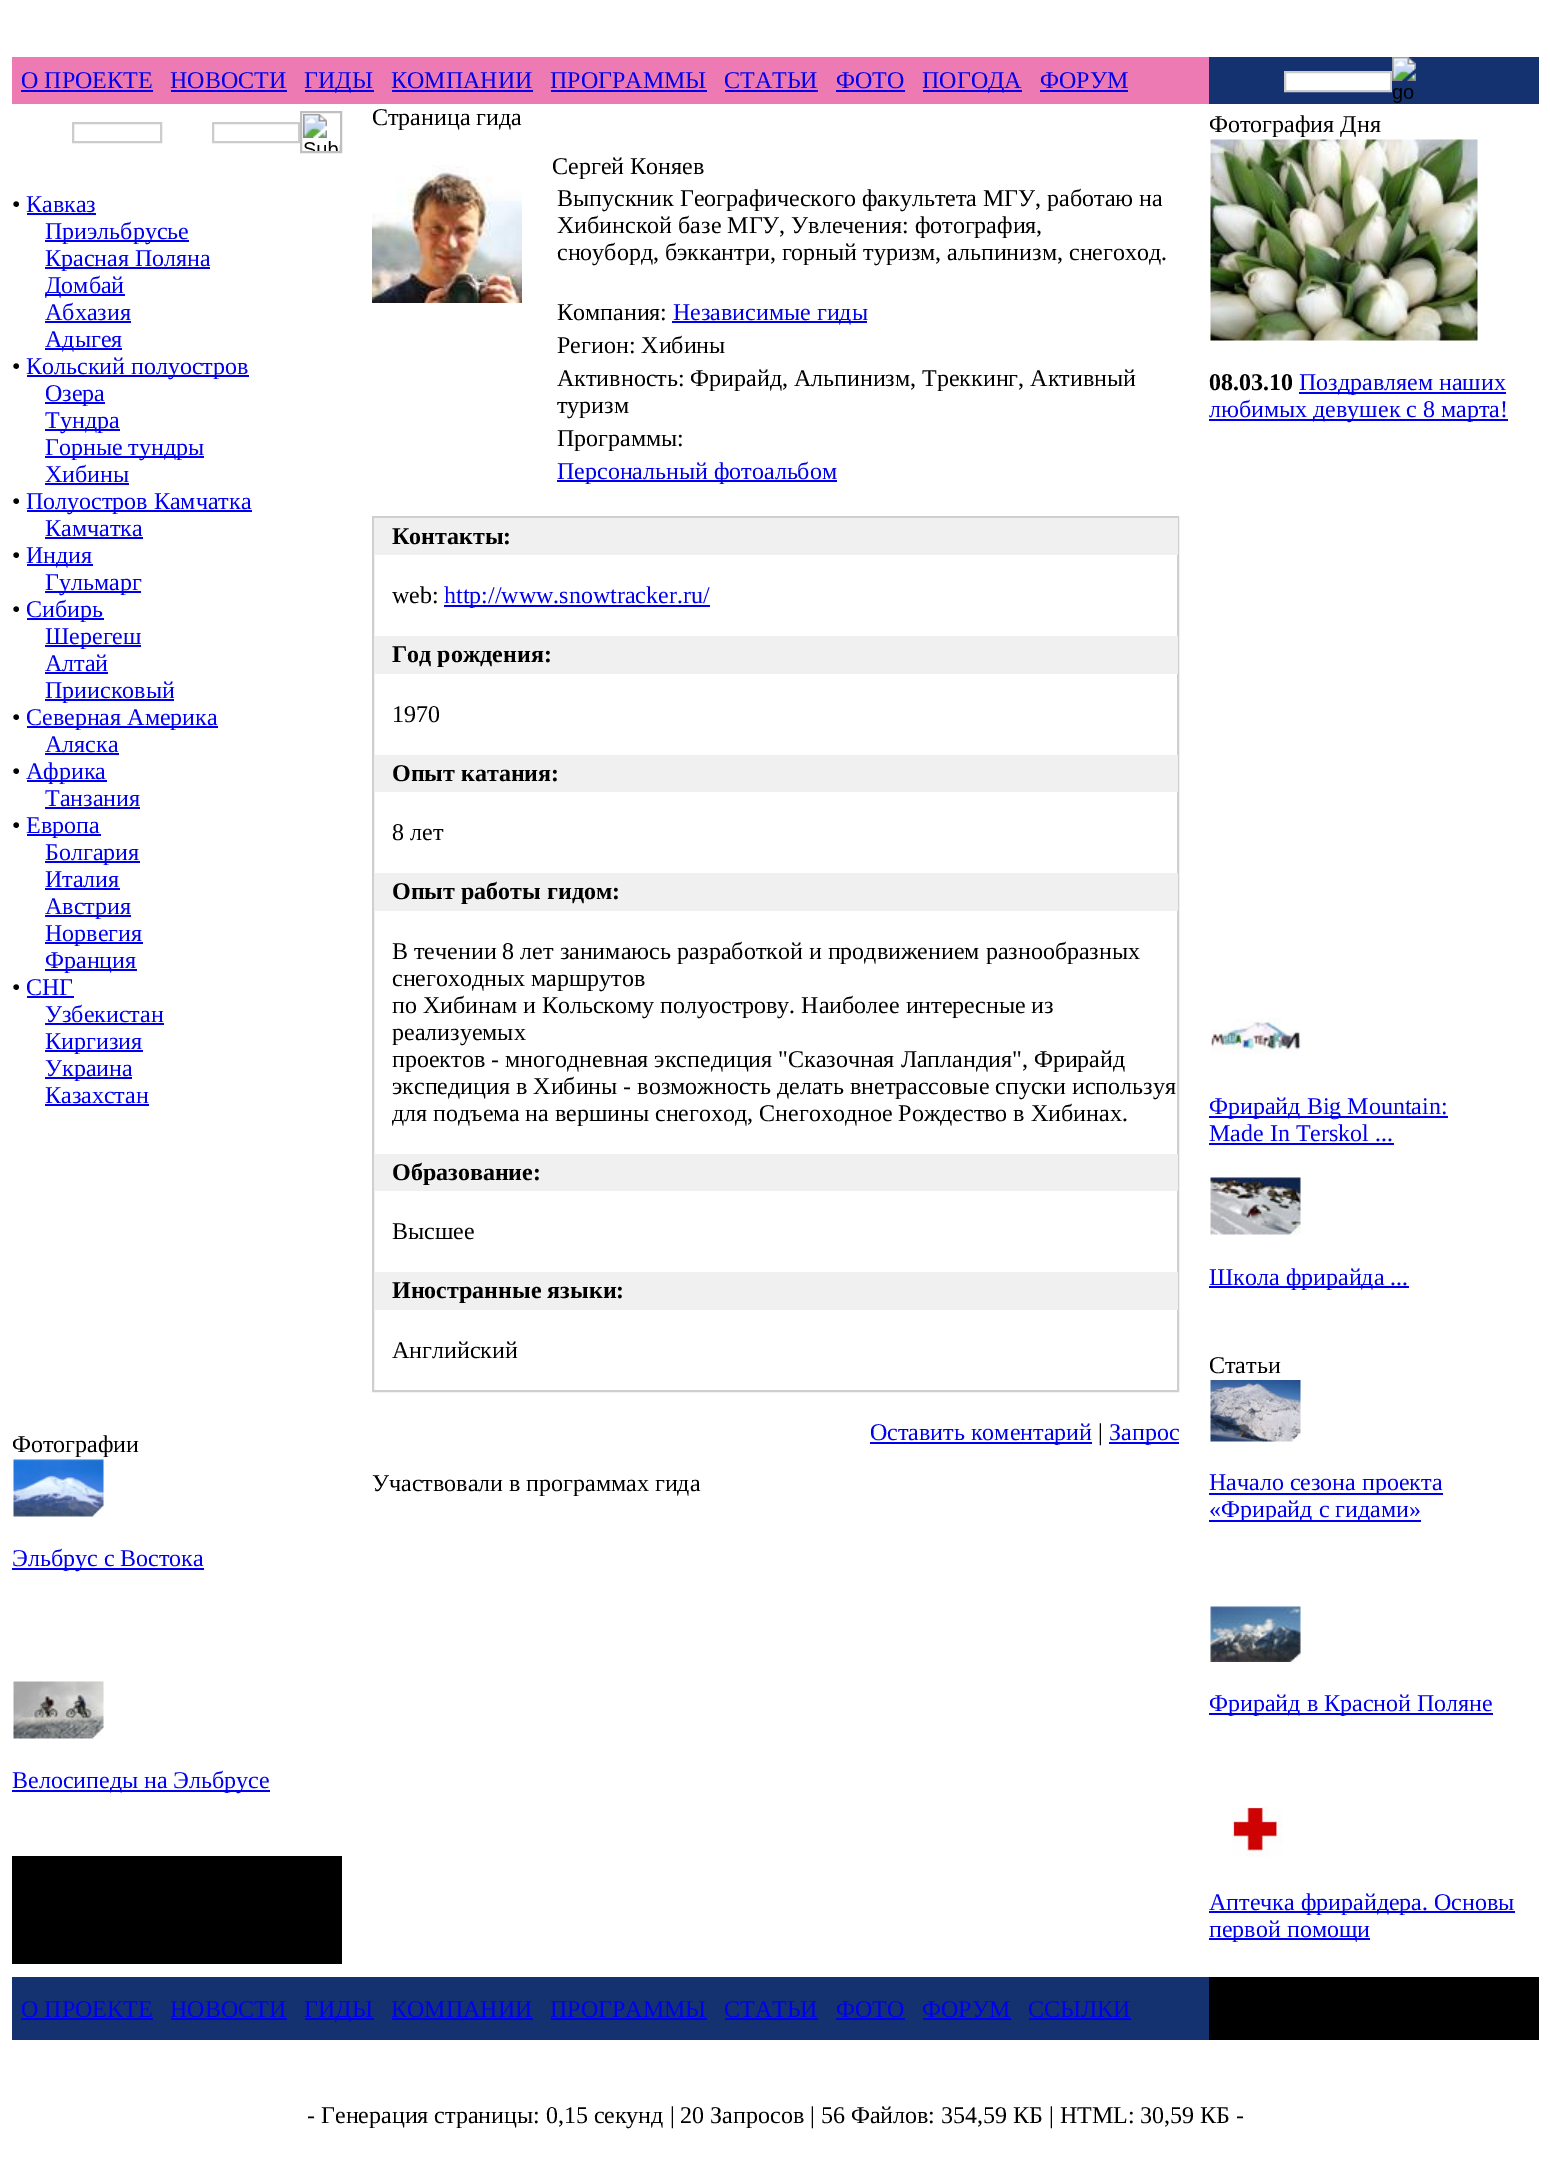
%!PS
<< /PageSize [1550 2171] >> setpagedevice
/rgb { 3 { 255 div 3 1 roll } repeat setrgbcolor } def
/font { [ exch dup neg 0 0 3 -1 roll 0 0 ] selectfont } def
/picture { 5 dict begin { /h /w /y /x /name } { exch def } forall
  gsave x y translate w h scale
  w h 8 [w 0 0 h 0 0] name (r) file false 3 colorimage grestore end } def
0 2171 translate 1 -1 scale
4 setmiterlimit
255 255 255 rgb
0 0 1550 2171 rectfill
[
  [12 57 1197 47 238 122 180]
  [21 90 132 2 0 0 238]
  [171 90 116 2 0 0 238]
  [305 90 69 2 0 0 238]
  [392 90 141 2 0 0 238]
  [551 90 156 2 0 0 238]
  [725 90 93 2 0 0 238]
  [836 90 69 2 0 0 238]
  [923 90 99 2 0 0 238]
  [1040 90 88 2 0 0 238]
  [1209 57 330 47 21 50 112]
] { aload pop rgb rectfill } forall
255 255 255 rgb
1285 72 moveto 1391 72 lineto 1391 91 lineto 1285 91 lineto closepath gsave fill grestore
204 204 204 rgb
2 setlinewidth
stroke
(img/1.rgb) 1392 57 24 46 picture
73 123 88 19 rectstroke
213 123 86 19 rectstroke
(img/2.rgb) 303 114 37 37 picture
192 192 192 rgb
301 112 40 40 rectstroke
[
  [27 213 69 2 0 0 238]
  [45 240 144 2 0 0 238]
  [45 267 165 2 0 0 238]
  [45 294 80 2 0 0 238]
  [45 321 86 2 0 0 238]
  [45 348 77 2 0 0 238]
  [27 375 222 2 0 0 238]
  [45 402 60 2 0 0 238]
  [45 429 75 2 0 0 238]
  [45 456 159 2 0 0 238]
  [45 483 84 2 0 0 238]
  [27 510 225 2 0 0 238]
  [45 537 98 2 0 0 238]
  [27 564 66 2 0 0 238]
  [45 591 96 2 0 0 238]
  [27 618 77 2 0 0 238]
  [45 645 96 2 0 0 238]
  [45 672 63 2 0 0 238]
  [45 699 129 2 0 0 238]
  [27 726 191 2 0 0 238]
  [45 753 74 2 0 0 238]
  [27 780 80 2 0 0 238]
  [45 807 95 2 0 0 238]
  [27 834 74 2 0 0 238]
  [45 861 95 2 0 0 238]
  [45 888 75 2 0 0 238]
  [45 915 86 2 0 0 238]
  [45 942 98 2 0 0 238]
  [45 969 92 2 0 0 238]
  [27 996 47 2 0 0 238]
  [45 1023 119 2 0 0 238]
  [45 1050 98 2 0 0 238]
  [45 1077 87 2 0 0 238]
  [45 1104 104 2 0 0 238]
] { aload pop rgb rectfill } forall
(img/3.rgb) 13 1459 91 58 picture
12 1568 192 2 rectfill
(img/4.rgb) 13 1681 91 58 picture
12 1790 258 2 rectfill
0 0 0 rgb
12 1856 330 108 rectfill
(img/5.rgb) 372 165 150 138 picture
0 0 238 rgb
672 321 195 2 rectfill
557 480 280 2 rectfill
207 207 207 rgb
373 517 805 874 rectstroke
[
  [374 518 804 37 240 240 240]
  [444 605 266 2 0 0 238]
  [374 636 804 38 240 240 240]
  [374 755 804 37 240 240 240]
  [374 873 804 38 240 240 240]
  [374 1154 804 37 240 240 240]
  [374 1272 804 38 240 240 240]
  [870 1442 222 2 0 0 238]
  [1109 1442 70 2 0 0 238]
] { aload pop rgb rectfill } forall
(img/6.rgb) 1210 139 268 202 picture
1299 392 207 2 rectfill
1209 419 299 2 rectfill
(img/7.rgb) 1210 1018 91 36 picture
1209 1116 239 2 rectfill
1209 1143 185 2 rectfill
(img/8.rgb) 1210 1177 91 58 picture
1209 1286 200 2 rectfill
(img/9.rgb) 1210 1380 91 62 picture
1209 1493 234 2 rectfill
1209 1520 212 2 rectfill
(img/10.rgb) 1210 1606 91 56 picture
1209 1713 284 2 rectfill
(img/11.rgb) 1232 1807 51 50 picture
[
  [1209 1911 306 2 0 0 238]
  [1209 1938 161 2 0 0 238]
  [12 1977 1197 63 21 50 112]
  [21 2018 132 2 0 0 238]
  [171 2018 116 2 0 0 238]
  [305 2018 69 2 0 0 238]
  [392 2018 141 2 0 0 238]
  [551 2018 156 2 0 0 238]
  [725 2018 93 2 0 0 238]
  [836 2018 69 2 0 0 238]
  [923 2018 88 2 0 0 238]
  [1029 2018 102 2 0 0 238]
  [1209 1977 330 63 0 0 0]
] { aload pop rgb rectfill } forall
/LiberationSerif-Regular 24 font
0 0 238 rgb
[
  [(О ПРОЕКТЕ) 21 88]
  [(НОВОСТИ) 170 88]
  [(ГИДЫ) 304 88]
  [(КОМПАНИИ) 391 88]
  [(ПРОГРАММЫ) 550 88]
  [(СТАТЬИ) 724 88]
  [(ФОТО) 836 88]
  [(ПОГОДА) 922 88]
  [(ФОРУМ) 1040 88]
] { aload pop moveto show } forall
0 0 0 rgb
12 212 moveto (•) show
0 0 238 rgb
[
  [(Кавказ) 26 212]
  [(Приэльбрусье) 45 239]
  [(Красная Поляна) 45 266]
  [(Домбай) 45 293]
  [(Абхазия) 45 320]
  [(Адыгея) 45 347]
] { aload pop moveto show } forall
0 0 0 rgb
12 374 moveto (•) show
0 0 238 rgb
[
  [(Кольский полуостров) 26 374]
  [(Озера) 45 401]
  [(Тундра) 45 428]
  [(Горные тундры) 45 455]
  [(Хибины) 45 482]
] { aload pop moveto show } forall
0 0 0 rgb
12 509 moveto (•) show
0 0 238 rgb
26 509 moveto (Полуостров Камчатка) show
45 536 moveto (Камчатка) show
0 0 0 rgb
12 563 moveto (•) show
0 0 238 rgb
26 563 moveto (Индия) show
45 590 moveto (Гульмарг) show
0 0 0 rgb
12 617 moveto (•) show
0 0 238 rgb
[
  [(Сибирь) 26 617]
  [(Шерегеш) 45 644]
  [(Алтай) 45 671]
  [(Приисковый) 45 698]
] { aload pop moveto show } forall
0 0 0 rgb
12 725 moveto (•) show
0 0 238 rgb
26 725 moveto (Северная Америка) show
45 752 moveto (Аляска) show
0 0 0 rgb
12 779 moveto (•) show
0 0 238 rgb
26 779 moveto (Африка) show
45 806 moveto (Танзания) show
0 0 0 rgb
12 833 moveto (•) show
0 0 238 rgb
[
  [(Европа) 26 833]
  [(Болгария) 45 860]
  [(Италия) 45 887]
  [(Австрия) 45 914]
  [(Норвегия) 45 941]
  [(Франция) 45 968]
] { aload pop moveto show } forall
0 0 0 rgb
12 995 moveto (•) show
0 0 238 rgb
[
  [(СНГ) 26 995]
  [(Узбекистан) 45 1022]
  [(Киргизия) 45 1049]
  [(Украина) 45 1076]
  [(Казахстан) 45 1103]
] { aload pop moveto show } forall
0 0 0 rgb
12 1452 moveto (Фотографии) show
0 0 238 rgb
12 1566 moveto (Эльбрус с Востока) show
12 1788 moveto (Велосипеды на Эльбрусе) show
0 0 0 rgb
[
  [(Страница гида) 372 125]
  [(Сергей Коняев) 552 174]
  [(Выпускник Географического факультета МГУ, работаю на) 557 206]
  [(Хибинской базе МГУ, Увлечения: фотография,) 557 233]
  [(сноуборд, бэккантри, горный туризм, альпинизм, снегоход.) 557 260]
  [(Компания:) 557 320]
] { aload pop moveto show } forall
0 0 238 rgb
673 320 moveto (Независимые гиды) show
0 0 0 rgb
[
  [(Регион: Хибины) 557 353]
  [(Активность: Фрирайд, Альпинизм, Треккинг, Активный) 557 386]
  [(туризм) 557 413]
  [(Программы:) 557 446]
] { aload pop moveto show } forall
0 0 238 rgb
557 479 moveto (Персональный фотоальбом) show
/LiberationSerif-Bold 24 font
0 0 0 rgb
392 544 moveto (Контакты:) show
/LiberationSerif-Regular 24 font
392 603 moveto (web:) show
0 0 238 rgb
444 603 moveto (http://www.snowtracker.ru/) show
/LiberationSerif-Bold 24 font
0 0 0 rgb
392 662 moveto (Год рождения:) show
/LiberationSerif-Regular 24 font
392 722 moveto (1970) show
/LiberationSerif-Bold 24 font
392 781 moveto (Опыт катания:) show
/LiberationSerif-Regular 24 font
392 840 moveto (8 лет) show
/LiberationSerif-Bold 24 font
392 899 moveto (Опыт работы гидом:) show
/LiberationSerif-Regular 24 font
[
  [(В течении 8 лет занимаюсь разработкой и продвижением разнообразных) 392 959]
  [(снегоходных маршрутов) 392 986]
  [(по Хибинам и Кольскому полуострову. Наиболее интересные из) 392 1013]
  [(реализуемых) 392 1040]
  [(проектов - многодневная экспедиция "Сказочная Лапландия", Фрирайд) 392 1067]
  [(экспедиция в Хибины - возможность делать внетрассовые спуски используя) 392 1094]
  [(для подъема на вершины снегоход, Снегоходное Рождество в Хибинах.) 392 1121]
] { aload pop moveto show } forall
/LiberationSerif-Bold 24 font
392 1180 moveto (Образование:) show
/LiberationSerif-Regular 24 font
392 1239 moveto (Высшее) show
/LiberationSerif-Bold 24 font
392 1298 moveto (Иностранные языки:) show
/LiberationSerif-Regular 24 font
392 1358 moveto (Английский) show
0 0 238 rgb
870 1440 moveto (Оставить коментарий) show
0 0 0 rgb
1098 1440 moveto (|) show
0 0 238 rgb
1109 1440 moveto (Запрос) show
0 0 0 rgb
372 1491 moveto (Участвовали в программах гида) show
1209 132 moveto (Фотография Дня) show
/LiberationSerif-Bold 24 font
1209 390 moveto (08.03.10) show
/LiberationSerif-Regular 24 font
0 0 238 rgb
[
  [(Поздравляем наших) 1299 390]
  [(любимых девушек с 8 марта!) 1209 417]
  [(Фрирайд Big Mountain:) 1209 1114]
  [(Made In Terskol ...) 1209 1141]
  [(Школа фрирайда ...) 1209 1285]
] { aload pop moveto show } forall
0 0 0 rgb
1209 1373 moveto (Статьи) show
0 0 238 rgb
[
  [(Начало сезона проекта) 1209 1490]
  [(«Фрирайд с гидами») 1209 1517]
  [(Фрирайд в Красной Поляне) 1209 1711]
  [(Аптечка фрирайдера. Основы) 1209 1910]
  [(первой помощи) 1209 1937]
  [(О ПРОЕКТЕ) 21 2017]
  [(НОВОСТИ) 170 2017]
  [(ГИДЫ) 304 2017]
  [(КОМПАНИИ) 391 2017]
  [(ПРОГРАММЫ) 550 2017]
  [(СТАТЬИ) 724 2017]
  [(ФОТО) 836 2017]
  [(ФОРУМ) 922 2017]
  [(ССЫЛКИ) 1028 2017]
] { aload pop moveto show } forall
0 0 0 rgb
307 2123 moveto (- Генерация страницы: 0,15 секунд | 20 Запросов | 56 Файлов: 354,59 КБ | HTML: 30,59 КБ -) show
showpage
